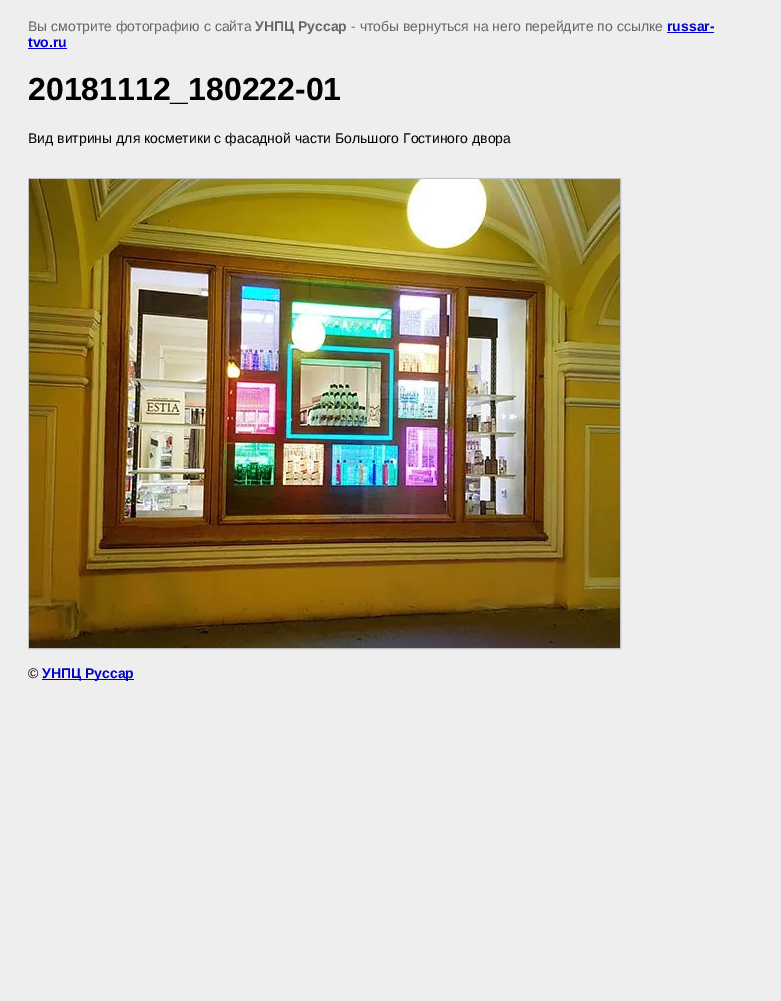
%!PS
<< /PageSize [781 1001] >> setpagedevice
/rgb { 3 { 255 div 3 1 roll } repeat setrgbcolor } def
/font { [ exch dup neg 0 0 3 -1 roll 0 0 ] selectfont } def
/picture { 5 dict begin { /h /w /y /x /name } { exch def } forall
  gsave x y translate w h scale
  w h 8 [w 0 0 h 0 0] name (r) file false 3 colorimage grestore end } def
0 1001 translate 1 -1 scale
4 setmiterlimit
238 238 238 rgb
0 0 781 1001 rectfill
0 0 204 rgb
667 32 47 1 rectfill
28 48 39 1 rectfill
192 192 192 rgb
28.5 178.5 592 470 rectstroke
(img/1.rgb) 29 179 591 469 picture
0 0 204 rgb
42 679 92 1 rectfill
/LiberationSans-Regular 14 font
102 102 102 rgb
28 31 moveto (Вы смотрите фотографию с сайта) show
/LiberationSans-Bold 14 font
255 31 moveto (УНПЦ Руссар) show
/LiberationSans-Regular 14 font
351 31 moveto (- чтобы вернуться на него перейдите по ссылке) show
/LiberationSans-Bold 14 font
0 0 204 rgb
667 31 moveto (russar-) show
28 47 moveto (tvo.ru) show
/LiberationSans-Bold 32 font
0 0 0 rgb
28 100 moveto (20181112_180222-01) show
/LiberationSans-Regular 14 font
28 143 moveto (Вид витрины для косметики с фасадной части Большого Гостиного двора) show
28 678 moveto (©) show
/LiberationSans-Bold 14 font
0 0 204 rgb
42 678 moveto (УНПЦ Руссар) show
showpage
